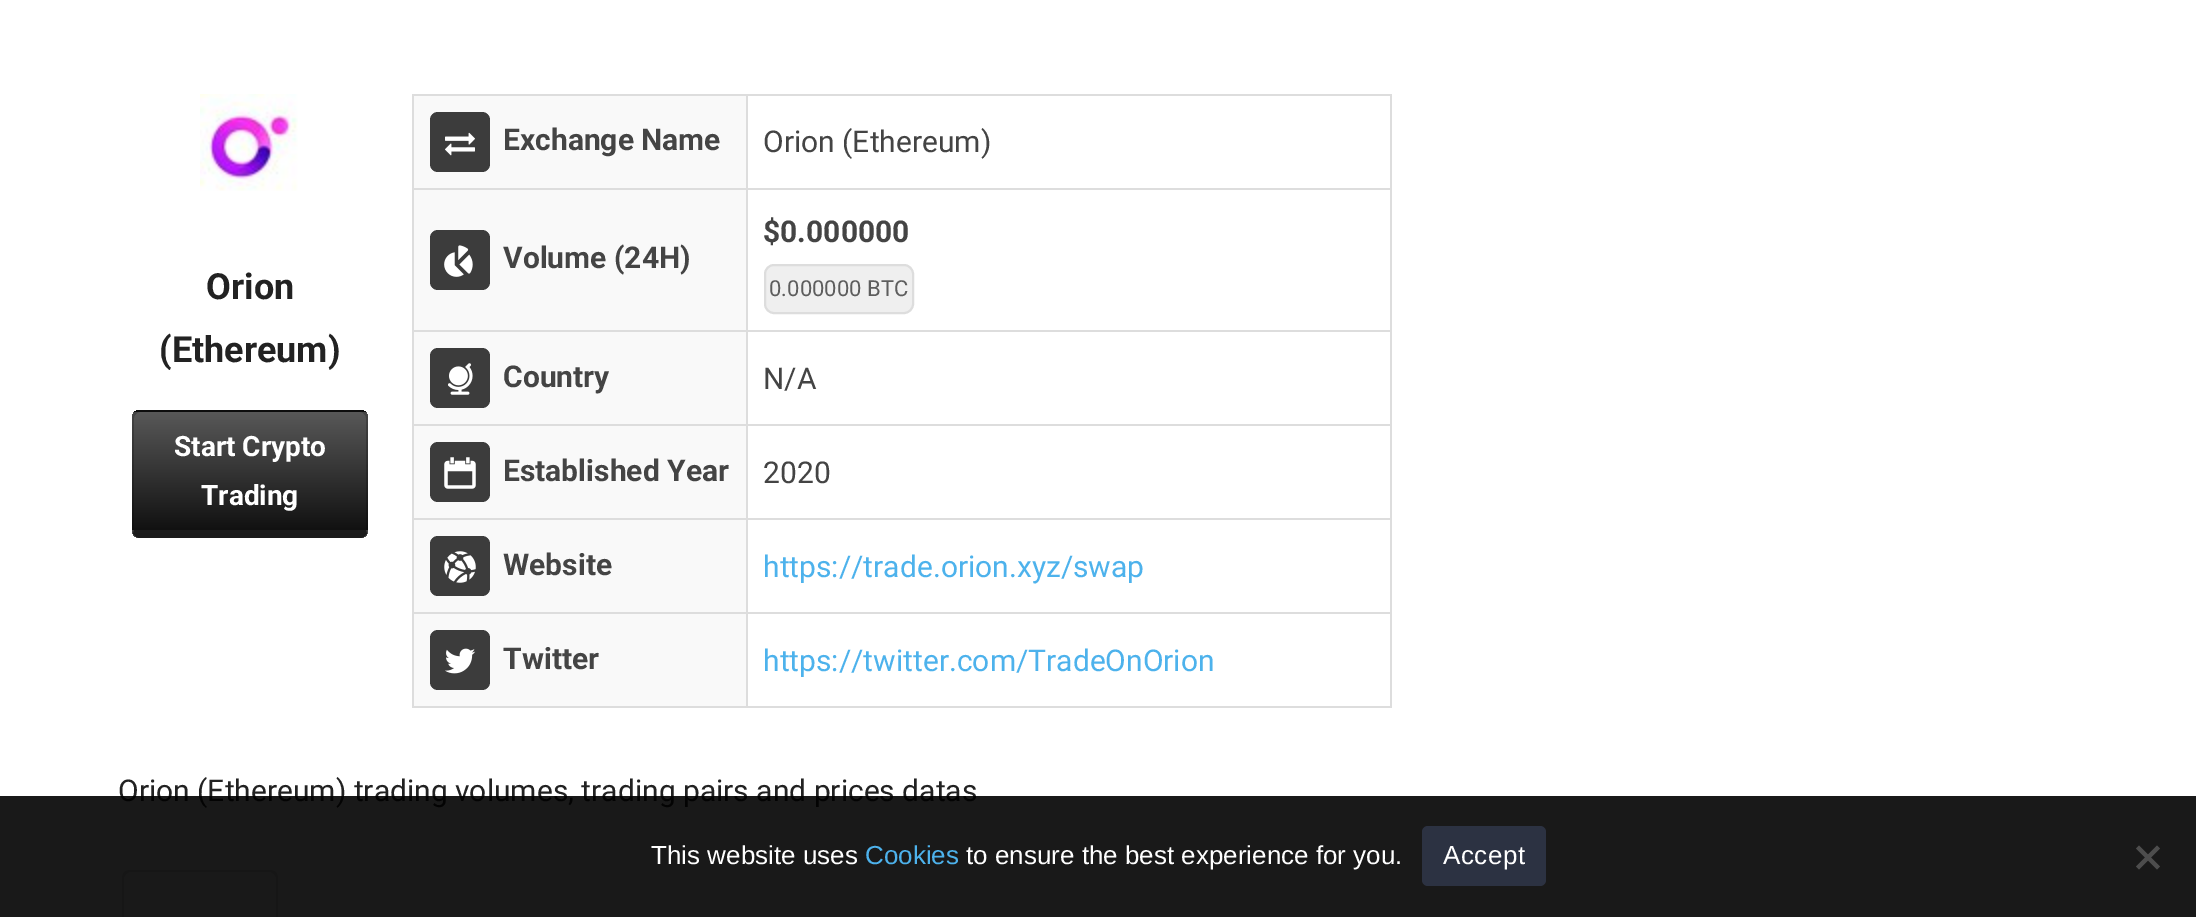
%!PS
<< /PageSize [2196 917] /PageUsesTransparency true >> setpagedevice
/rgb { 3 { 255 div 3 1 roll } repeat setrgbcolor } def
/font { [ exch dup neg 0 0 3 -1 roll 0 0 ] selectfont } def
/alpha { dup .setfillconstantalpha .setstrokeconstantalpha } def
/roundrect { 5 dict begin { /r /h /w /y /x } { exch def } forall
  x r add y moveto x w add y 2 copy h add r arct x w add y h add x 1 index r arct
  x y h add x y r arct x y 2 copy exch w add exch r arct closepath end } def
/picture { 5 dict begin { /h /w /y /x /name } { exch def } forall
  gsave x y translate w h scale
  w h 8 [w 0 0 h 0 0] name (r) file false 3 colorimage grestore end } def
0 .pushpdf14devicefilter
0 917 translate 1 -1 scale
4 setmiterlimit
255 255 255 rgb
0 0 2196 917 rectfill
(img/1.rgb) 200 94 98 97 picture
gsave
132 410 236 128 8 roundrect clip newpath
gsave 132 410 moveto 368 410 lineto 368 412 lineto 132 412 lineto closepath clip newpath
<< /ShadingType 2 /ColorSpace /DeviceRGB /Coords [250 294 250 412] /Extend [true true] /Function << /FunctionType 2 /Domain [0 1] /C0 [0.345 0.345 0.345] /C1 [0.067 0.067 0.067] /N 1 >> >> shfill grestore
gsave 132 412 moveto 368 412 lineto 368 530 lineto 132 530 lineto closepath clip newpath
<< /ShadingType 2 /ColorSpace /DeviceRGB /Coords [250 412 250 530] /Extend [true true] /Function << /FunctionType 2 /Domain [0 1] /C0 [0.345 0.345 0.345] /C1 [0.067 0.067 0.067] /N 1 >> >> shfill grestore
grestore
gsave 132 530 moveto 368 530 lineto 368 534.5 364.5 538 360 538 curveto 140 538 lineto 135.5 538 132 534.5 132 530 curveto closepath clip newpath
<< /ShadingType 2 /ColorSpace /DeviceRGB /Coords [250 530 250 648] /Extend [true true] /Function << /FunctionType 2 /Domain [0 1] /C0 [0.345 0.345 0.345] /C1 [0.067 0.067 0.067] /N 1 >> >> shfill grestore
0.21 alpha
0 0 0 rgb
140 410 moveto 138 410 136 411 134 412 curveto 136 414 lineto 137 413 138 412 140 412 curveto 360 412 lineto 362 412 363 413 364 414 curveto 366 412 lineto 364 411 362 410 360 410 curveto closepath fill
368 530 moveto 368 418 lineto 368 416 367 414 366 412 curveto 364 414 lineto 365 415 366 416 366 418 curveto 366 530 lineto 367 534 lineto closepath fill
0.68 alpha
140 538 moveto 360 538 lineto 363 538 365 536 367 534 curveto 366 530 lineto 134 530 lineto 133 534 lineto 135 536 137 538 140 538 curveto closepath fill
0.21 alpha
132 418 moveto 132 530 lineto 132 531 132 533 133 534 curveto 134 530 lineto 134 418 lineto 134 416 135 415 136 414 curveto 134 412 lineto 133 414 132 416 132 418 curveto closepath fill
1 alpha
[
  [414 96 332 92 249 249 249]
  [746 94 646 2 221 221 221]
  [746 188 646 2 221 221 221]
  [746 330 646 2 221 221 221]
  [746 424 646 2 221 221 221]
  [746 518 646 2 221 221 221]
  [746 612 646 2 221 221 221]
  [1390 612 2 96 221 221 221]
  [746 706 646 2 221 221 221]
  [746 612 2 96 221 221 221]
  [412 612 336 2 221 221 221]
  [746 518 2 96 221 221 221]
  [412 518 336 2 221 221 221]
  [746 424 2 96 221 221 221]
  [412 424 336 2 221 221 221]
  [746 330 2 96 221 221 221]
  [412 330 336 2 221 221 221]
  [746 188 2 144 221 221 221]
  [412 188 336 2 221 221 221]
  [746 94 2 96 221 221 221]
  [412 94 336 2 221 221 221]
  [412 706 336 2 221 221 221]
  [412 612 2 96 221 221 221]
  [412 518 2 96 221 221 221]
  [412 424 2 96 221 221 221]
  [412 330 2 96 221 221 221]
  [412 188 2 144 221 221 221]
  [412 94 2 96 221 221 221]
] { aload pop rgb rectfill } forall
60 60 60 rgb
430 112 60 60 8 roundrect fill
(img/2.rgb) 445 132 30 24 picture
[
  [1390 518 2 96 221 221 221]
  [1390 424 2 96 221 221 221]
  [1390 330 2 96 221 221 221]
  [1390 188 2 144 221 221 221]
  [1390 94 2 96 221 221 221]
  [414 190 332 140 249 249 249]
] { aload pop rgb rectfill } forall
60 60 60 rgb
430 230 60 60 8 roundrect fill
(img/3.rgb) 444 245 29 32 picture
239 239 239 rgb
765 265 148 48 9 roundrect gsave fill grestore
221 221 221 rgb
2 setlinewidth
stroke
249 249 249 rgb
414 332 332 92 rectfill
60 60 60 rgb
430 348 60 60 8 roundrect fill
(img/4.rgb) 448 363 25 32 picture
249 249 249 rgb
414 426 332 92 rectfill
60 60 60 rgb
430 442 60 60 8 roundrect fill
(img/5.rgb) 444 457 32 32 picture
249 249 249 rgb
414 520 332 92 rectfill
60 60 60 rgb
430 536 60 60 8 roundrect fill
(img/6.rgb) 444 551 32 32 picture
249 249 249 rgb
414 614 332 92 rectfill
60 60 60 rgb
430 630 60 60 8 roundrect fill
(img/7.rgb) 445 648 31 26 picture
221 221 221 rgb
130 870 moveto 128 870 126 871 124 872 curveto 126 874 lineto 129 872 lineto 271 872 lineto 274 874 lineto 276 872 lineto 274 871 272 870 270 870 curveto closepath fill
278 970 moveto 278 878 lineto 278 876 277 874 276 872 curveto 274 874 lineto 276 877 lineto 276 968 lineto closepath fill
122 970 moveto 124 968 lineto 124 877 lineto 126 874 lineto 124 872 lineto 123 874 122 876 122 878 curveto closepath fill
/Roboto-Bold 36 font
34 34 34 rgb
206 299 moveto (Orion) show
159 362 moveto (\(Ethereum\)) show
/Roboto-Bold 28 font
255 255 255 rgb
174 456 moveto (Start Crypto) show
201 505 moveto (Trading) show
/Roboto-Bold 30 font
68 68 68 rgb
503 150 moveto (Exchange Name) show
/Roboto-Regular 30 font
763 152 moveto (Orion \(Ethereum\)) show
/Roboto-Bold 30 font
503 268 moveto (Volume \(24H\)) show
763 242 moveto ($0.000000) show
/Roboto-Regular 22 font
93 93 93 rgb
769 296 moveto (0.000000 BTC) show
/Roboto-Bold 30 font
68 68 68 rgb
503 387 moveto (Country) show
/Roboto-Regular 30 font
763 389 moveto (N/A) show
/Roboto-Bold 30 font
503 481 moveto (Established Year) show
/Roboto-Regular 30 font
763 483 moveto (2020) show
/Roboto-Bold 30 font
503 575 moveto (Website) show
/Roboto-Regular 30 font
77 178 236 rgb
763 577 moveto (https://trade.orion.xyz/swap) show
/Roboto-Bold 30 font
68 68 68 rgb
503 669 moveto (Twitter) show
/Roboto-Regular 30 font
77 178 236 rgb
763 671 moveto (https://twitter.com/TradeOnOrion) show
34 34 34 rgb
118 801 moveto (Orion \(Ethereum\) trading volumes, trading pairs and prices datas) show
0.9 alpha
0 0 0 rgb
0 796 2196 121 rectfill
/LiberationSans-Regular 26 font
1 alpha
255 255 255 rgb
651 864 moveto (This website uses) show
77 178 236 rgb
865 864 moveto (Cookies) show
255 255 255 rgb
966 864 moveto (to ensure the best experience for you.) show
44 50 66 rgb
1422 826 124 60 6 roundrect fill
255 255 255 rgb
1443 864 moveto 0.5 0 (Accept) ashow
77 77 77 rgb
2157 845.5 moveto 2160 848.5 lineto 2139 869.5 lineto 2136 866.5 lineto closepath fill
2136 848.5 moveto 2139 845.5 lineto 2160 866.5 lineto 2157 869.5 lineto closepath fill
.poppdf14devicefilter showpage
